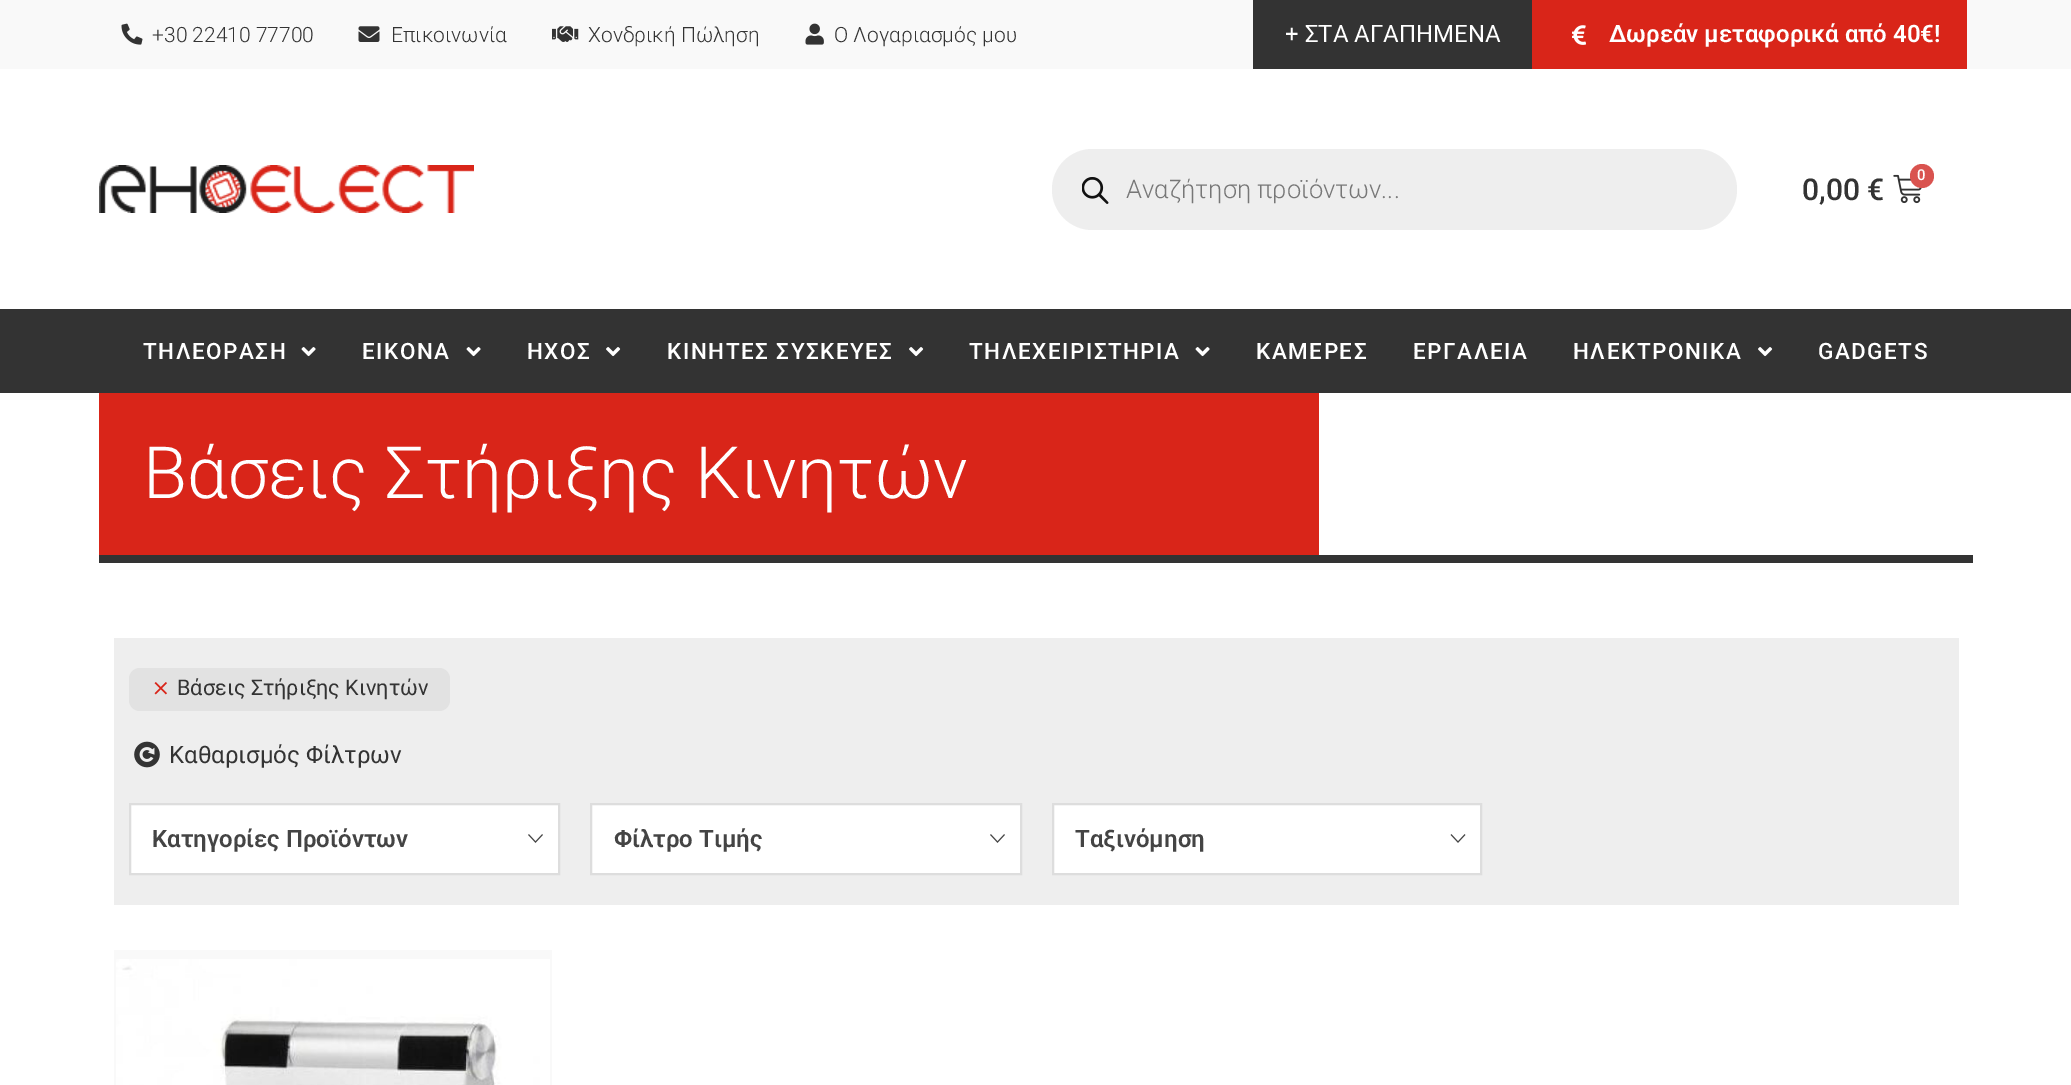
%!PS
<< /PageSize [2071 1085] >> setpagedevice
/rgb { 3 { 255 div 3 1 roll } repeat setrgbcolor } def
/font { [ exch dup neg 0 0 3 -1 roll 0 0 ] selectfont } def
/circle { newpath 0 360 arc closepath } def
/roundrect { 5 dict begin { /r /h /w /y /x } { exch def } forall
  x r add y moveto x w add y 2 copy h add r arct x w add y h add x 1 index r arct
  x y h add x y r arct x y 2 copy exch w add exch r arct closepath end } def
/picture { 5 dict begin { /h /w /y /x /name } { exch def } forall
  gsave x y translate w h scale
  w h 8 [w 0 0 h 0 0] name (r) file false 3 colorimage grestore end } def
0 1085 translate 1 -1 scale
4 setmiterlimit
255 255 255 rgb
0 0 2071 1085 rectfill
249 249 249 rgb
0 0 2071 69 rectfill
(img/1.rgb) 121 23 22 22 picture
(img/2.rgb) 358 26 22 16 picture
(img/3.rgb) 552 26 27 16 picture
(img/4.rgb) 805 23 19 22 picture
51 51 51 rgb
1253 0 279 69 rectfill
217 37 25 rgb
1532 0 435 69 rectfill
(img/5.rgb) 1572 25 14 20 picture
(img/6.rgb) 99 165 375 48 picture
238 238 238 rgb
1052 149 685 81 40.5 roundrect fill
(img/7.rgb) 1082 177 27 27 picture
(img/8.rgb) 1893 174 29 30 picture
217 83 79 rgb
1922 176 12 circle fill
51 51 51 rgb
0 309 2071 84 rectfill
(img/9.rgb) 301 347 15 10 picture
(img/9.rgb) 466 347 15 10 picture
(img/10.rgb) 606 347 15 10 picture
(img/10.rgb) 909 347 15 10 picture
(img/9.rgb) 1195 347 15 10 picture
(img/10.rgb) 1758 347 15 10 picture
[
  [99 393 1220 162 217 37 25]
  [99 555 1874 8 51 51 51]
  [114 638 1845 267 238 238 238]
] { aload pop rgb rectfill } forall
226 226 226 rgb
129 668 321 43 11 roundrect fill
(img/11.rgb) 154 682 13 13 picture
(img/12.rgb) 134 741 26 27 picture
255 255 255 rgb
130 804 moveto 559 804 lineto 559 874 lineto 130 874 lineto closepath gsave fill grestore
221 221 221 rgb
2 setlinewidth
stroke
(img/13.rgb) 528 834 15 9 picture
255 255 255 rgb
591 804 moveto 1021 804 lineto 1021 874 lineto 591 874 lineto closepath gsave fill grestore
221 221 221 rgb
stroke
(img/13.rgb) 990 834 15 9 picture
255 255 255 rgb
1053 804 moveto 1481 804 lineto 1481 874 lineto 1053 874 lineto closepath gsave fill grestore
221 221 221 rgb
stroke
(img/14.rgb) 1450 834 16 9 picture
249 249 249 rgb
114 950 438 135 rectfill
(img/15.rgb) 116 959 434 126 picture
/Roboto-Light 21 font
51 51 51 rgb
[
  [(+30 22410 77700) 152 42]
  [(Επικοινωνία) 391 42]
  [(Χονδρική Πώληση) 588 42]
  [(Ο Λογαριασμός μου) 834 42]
] { aload pop moveto show } forall
/Roboto-Regular 24 font
255 255 255 rgb
1285 42 moveto (+ ΣΤΑ ΑΓΑΠΗΜΕΝΑ) show
/Roboto-SemiBold 24 font
1609 42 moveto (Δωρεάν μεταφορικά από 40€!) show
/Roboto-Light 25.5 font
119 119 119 rgb
1126 198 moveto (Αναζήτηση προϊόντων...) show
/Roboto-Medium 15 font
255 255 255 rgb
1917 180 moveto (0) show
/Roboto-Medium 30 font
51 51 51 rgb
1802 200 moveto (0,00 €) show
/Roboto-Medium 22.5 font
255 255 255 rgb
143 359 moveto 1.5 0 (ΤΗΛΕΟΡΑΣΗ) ashow
362 359 moveto 1.5 0 (ΕΙΚΟΝΑ) ashow
527 359 moveto 1.5 0 (ΗΧΟΣ) ashow
667 359 moveto 1.5 0 (ΚΙΝΗΤΕΣ ΣΥΣΚΕΥΕΣ) ashow
969 359 moveto 1.5 0 (ΤΗΛΕΧΕΙΡΙΣΤΗΡΙΑ) ashow
1256 359 moveto 1.5 0 (ΚΑΜΕΡΕΣ) ashow
1413 359 moveto 1.5 0 (ΕΡΓΑΛΕΙΑ) ashow
1573 359 moveto 1.5 0 (ΗΛΕΚΤΡΟΝΙΚΑ) ashow
1818 359 moveto 1.5 0 (GADGETS) ashow
/Roboto-Light 72 font
143 498 moveto (Βάσεις Στήριξης Κινητών) show
/Roboto-Regular 21.6 font
51 51 51 rgb
177 695 moveto (Βάσεις Στήριξης Κινητών) show
/Roboto-Regular 24 font
169 763 moveto (Καθαρισμός Φίλτρων) show
/Roboto-SemiBold 24 font
68 68 68 rgb
[
  [(Κατηγορίες Προϊόντων) 152 847]
  [(Φίλτρο Τιμής) 614 847]
  [(Ταξινόμηση) 1075 847]
] { aload pop moveto show } forall
showpage
